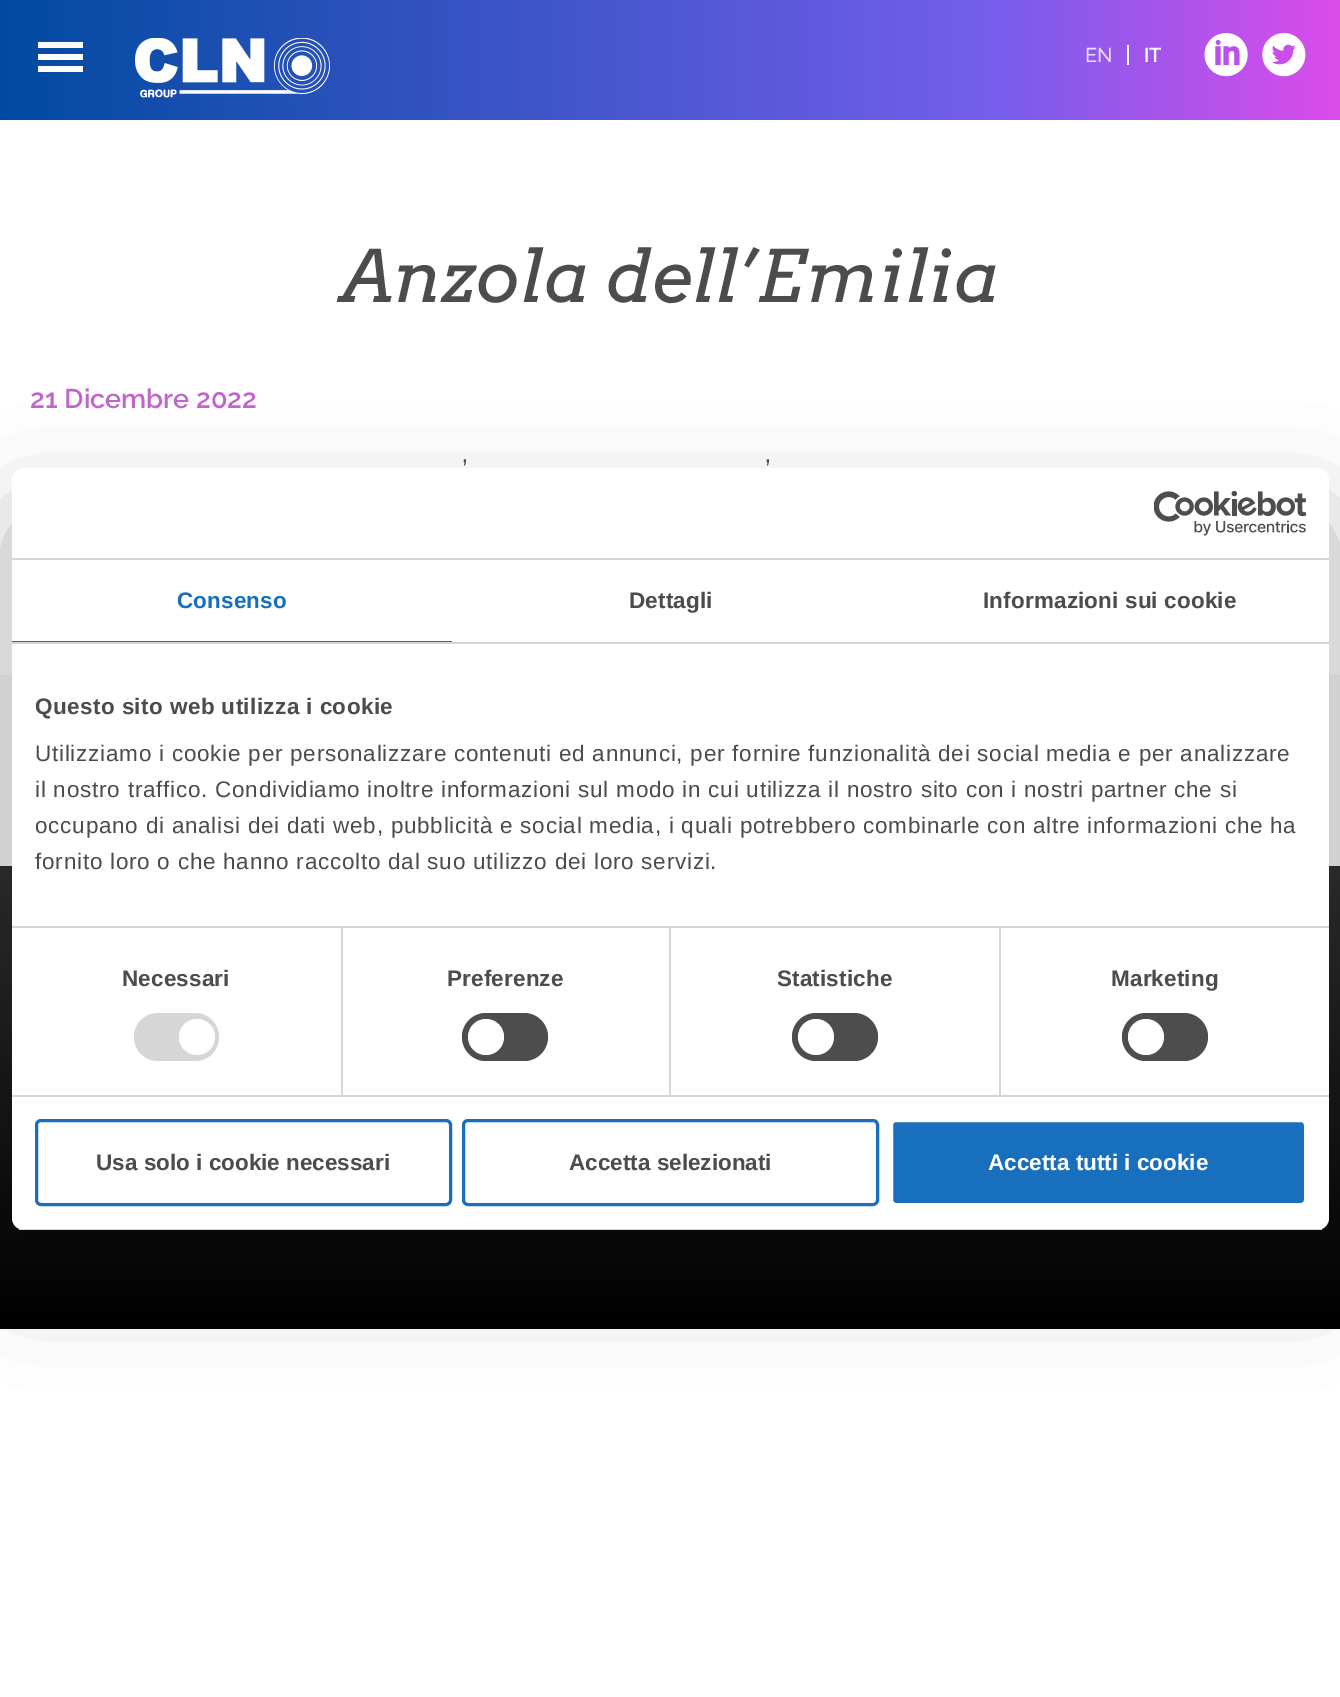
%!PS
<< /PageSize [1340 1697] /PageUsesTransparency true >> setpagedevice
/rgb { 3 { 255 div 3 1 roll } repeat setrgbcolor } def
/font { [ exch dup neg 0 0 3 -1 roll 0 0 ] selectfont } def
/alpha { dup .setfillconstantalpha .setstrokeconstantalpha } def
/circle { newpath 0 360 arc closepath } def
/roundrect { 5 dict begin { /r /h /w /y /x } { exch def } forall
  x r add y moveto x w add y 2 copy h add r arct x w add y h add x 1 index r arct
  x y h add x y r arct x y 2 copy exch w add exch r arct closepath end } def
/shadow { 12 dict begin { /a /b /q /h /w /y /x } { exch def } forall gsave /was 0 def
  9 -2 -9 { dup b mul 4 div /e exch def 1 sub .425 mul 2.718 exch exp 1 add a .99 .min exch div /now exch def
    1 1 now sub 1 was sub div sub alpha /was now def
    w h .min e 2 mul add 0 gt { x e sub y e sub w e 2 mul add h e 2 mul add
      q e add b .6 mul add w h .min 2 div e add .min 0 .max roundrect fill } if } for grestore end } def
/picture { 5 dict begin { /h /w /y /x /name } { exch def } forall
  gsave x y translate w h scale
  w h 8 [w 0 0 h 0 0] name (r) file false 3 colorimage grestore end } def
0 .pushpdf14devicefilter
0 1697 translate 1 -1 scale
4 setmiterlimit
255 255 255 rgb
0 0 1340 1697 rectfill
gsave 0 0 moveto 1340 0 lineto 1340 120 lineto 0 120 lineto closepath clip newpath
<< /ShadingType 2 /ColorSpace /DeviceRGB /Coords [0 60 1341 60] /Extend [true true] /Function << /FunctionType 3 /Domain [0 1] /Functions [<< /FunctionType 2 /Domain [0 1] /C0 [0 0.294 0.631] /C1 [0.459 0.369 0.922] /N 1 >> << /FunctionType 2 /Domain [0 1] /C0 [0.459 0.369 0.922] /C1 [0.859 0.298 0.918] /N 1 >>] /Bounds [0.74] /Encode [0 1 0 1] >> >> shfill grestore
[
  [38 54 45 6 255 255 255]
  [38 42 45 6 255 255 255]
  [38 66 45 6 255 255 255]
] { aload pop rgb rectfill } forall
(img/1.rgb) 135 38 195 60 picture
1127 45 2 20 rectfill
(img/2.rgb) 1204 33 44 44 picture
(img/3.rgb) 1262 33 44 44 picture
246 246 244 rgb
0 675 1340 191 rectfill
gsave 0 866 moveto 1340 866 lineto 1340 1329 lineto 0 1329 lineto closepath clip newpath
<< /ShadingType 2 /ColorSpace /DeviceRGB /Coords [671 866 671 1329] /Extend [true true] /Function << /FunctionType 2 /Domain [0 1] /C0 [0.192 0.192 0.192] /C1 [0 0 0] /N 1 >> >> shfill grestore
0 0 0 rgb
12 516 1317 762 12 51 0.3 shadow
255 255 255 rgb
12 468 1317 762 12 roundrect fill
214 214 214 rgb
12 558 1317 2 rectfill
(img/4.rgb) 1154 491 153 45 picture
[
  [12 642 1317 2 214 214 214]
  [12 641 440 1 23 111 189]
  [341 927 2 168 214 214 214]
  [669 927 2 168 214 214 214]
  [999 927 2 168 214 214 214]
  [12 926 1317 2 214 214 214]
  [12 1095 1317 2 214 214 214]
] { aload pop rgb rectfill } forall
134 1013 85 48 24 roundrect fill
255 255 255 rgb
197 1037 18 circle fill
77 77 77 rgb
462 1013 86 48 24 roundrect fill
255 255 255 rgb
486 1037 18 circle fill
77 77 77 rgb
792 1013 86 48 24 roundrect fill
255 255 255 rgb
816 1037 18 circle fill
77 77 77 rgb
1122 1013 86 48 24 roundrect fill
255 255 255 rgb
1146 1037 18 circle fill
gsave
12 468 1317 762 12 roundrect clip newpath
214 214 214 rgb
12 1229 1317 1 rectfill
grestore
23 111 189 rgb
3 setlinewidth
36.5 1120.5 414 84 4.5 roundrect stroke
463.5 1120.5 414 84 4.5 roundrect stroke
891.5 1120.5 414 84 4.5 roundrect gsave fill grestore
255 255 255 rgb
stroke
/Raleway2-Thin 20 font
234 222 251 rgb
1085 62 moveto (EN) show
/Raleway-Thin 20 font
255 255 255 rgb
1144 62 moveto (IT) show
/Arvo-Italic 72 font
76 76 76 rgb
342 302 moveto (Anzola dell’Emilia) show
/Raleway-Thin 27 font
193 101 205 rgb
30 408 moveto (21 Dicembre 2022) show
/Raleway2-Thin 27 font
76 76 76 rgb
462 479 moveto (’) show
765 479 moveto (’) show
/LiberationSans-Bold 22.5 font
23 111 189 rgb
177 608 moveto 0.15 0 (Consenso) ashow
76 76 76 rgb
629 608 moveto 0.15 0 (Dettagli) ashow
983 608 moveto 0.15 0 (Informazioni sui cookie) ashow
35 714 moveto 0.4 0 (Questo sito web utilizza i cookie) ashow
/LiberationSans-Regular 22.5 font
35 761 moveto 0.75 0 (Utilizziamo i cookie per personalizzare contenuti ed annunci, per fornire funzionalità dei social media e per analizzare) ashow
35 797 moveto 0.75 0 (il nostro traffico. Condividiamo inoltre informazioni sul modo in cui utilizza il nostro sito con i nostri partner che si) ashow
35 833 moveto 0.75 0 (occupano di analisi dei dati web, pubblicità e social media, i quali potrebbero combinarle con altre informazioni che ha) ashow
35 869 moveto 0.75 0 (fornito loro o che hanno raccolto dal suo utilizzo dei loro servizi.) ashow
/LiberationSans-Bold 22.5 font
122 986 moveto 0.15 0 (Necessari) ashow
447 986 moveto 0.15 0 (Preferenze) ashow
777 986 moveto 0.15 0 (Statistiche) ashow
1111 986 moveto 0.15 0 (Marketing) ashow
96 1170 moveto (Usa solo i cookie necessari) show
569 1170 moveto (Accetta selezionati) show
255 255 255 rgb
988 1170 moveto (Accetta tutti i cookie) show
.poppdf14devicefilter showpage
